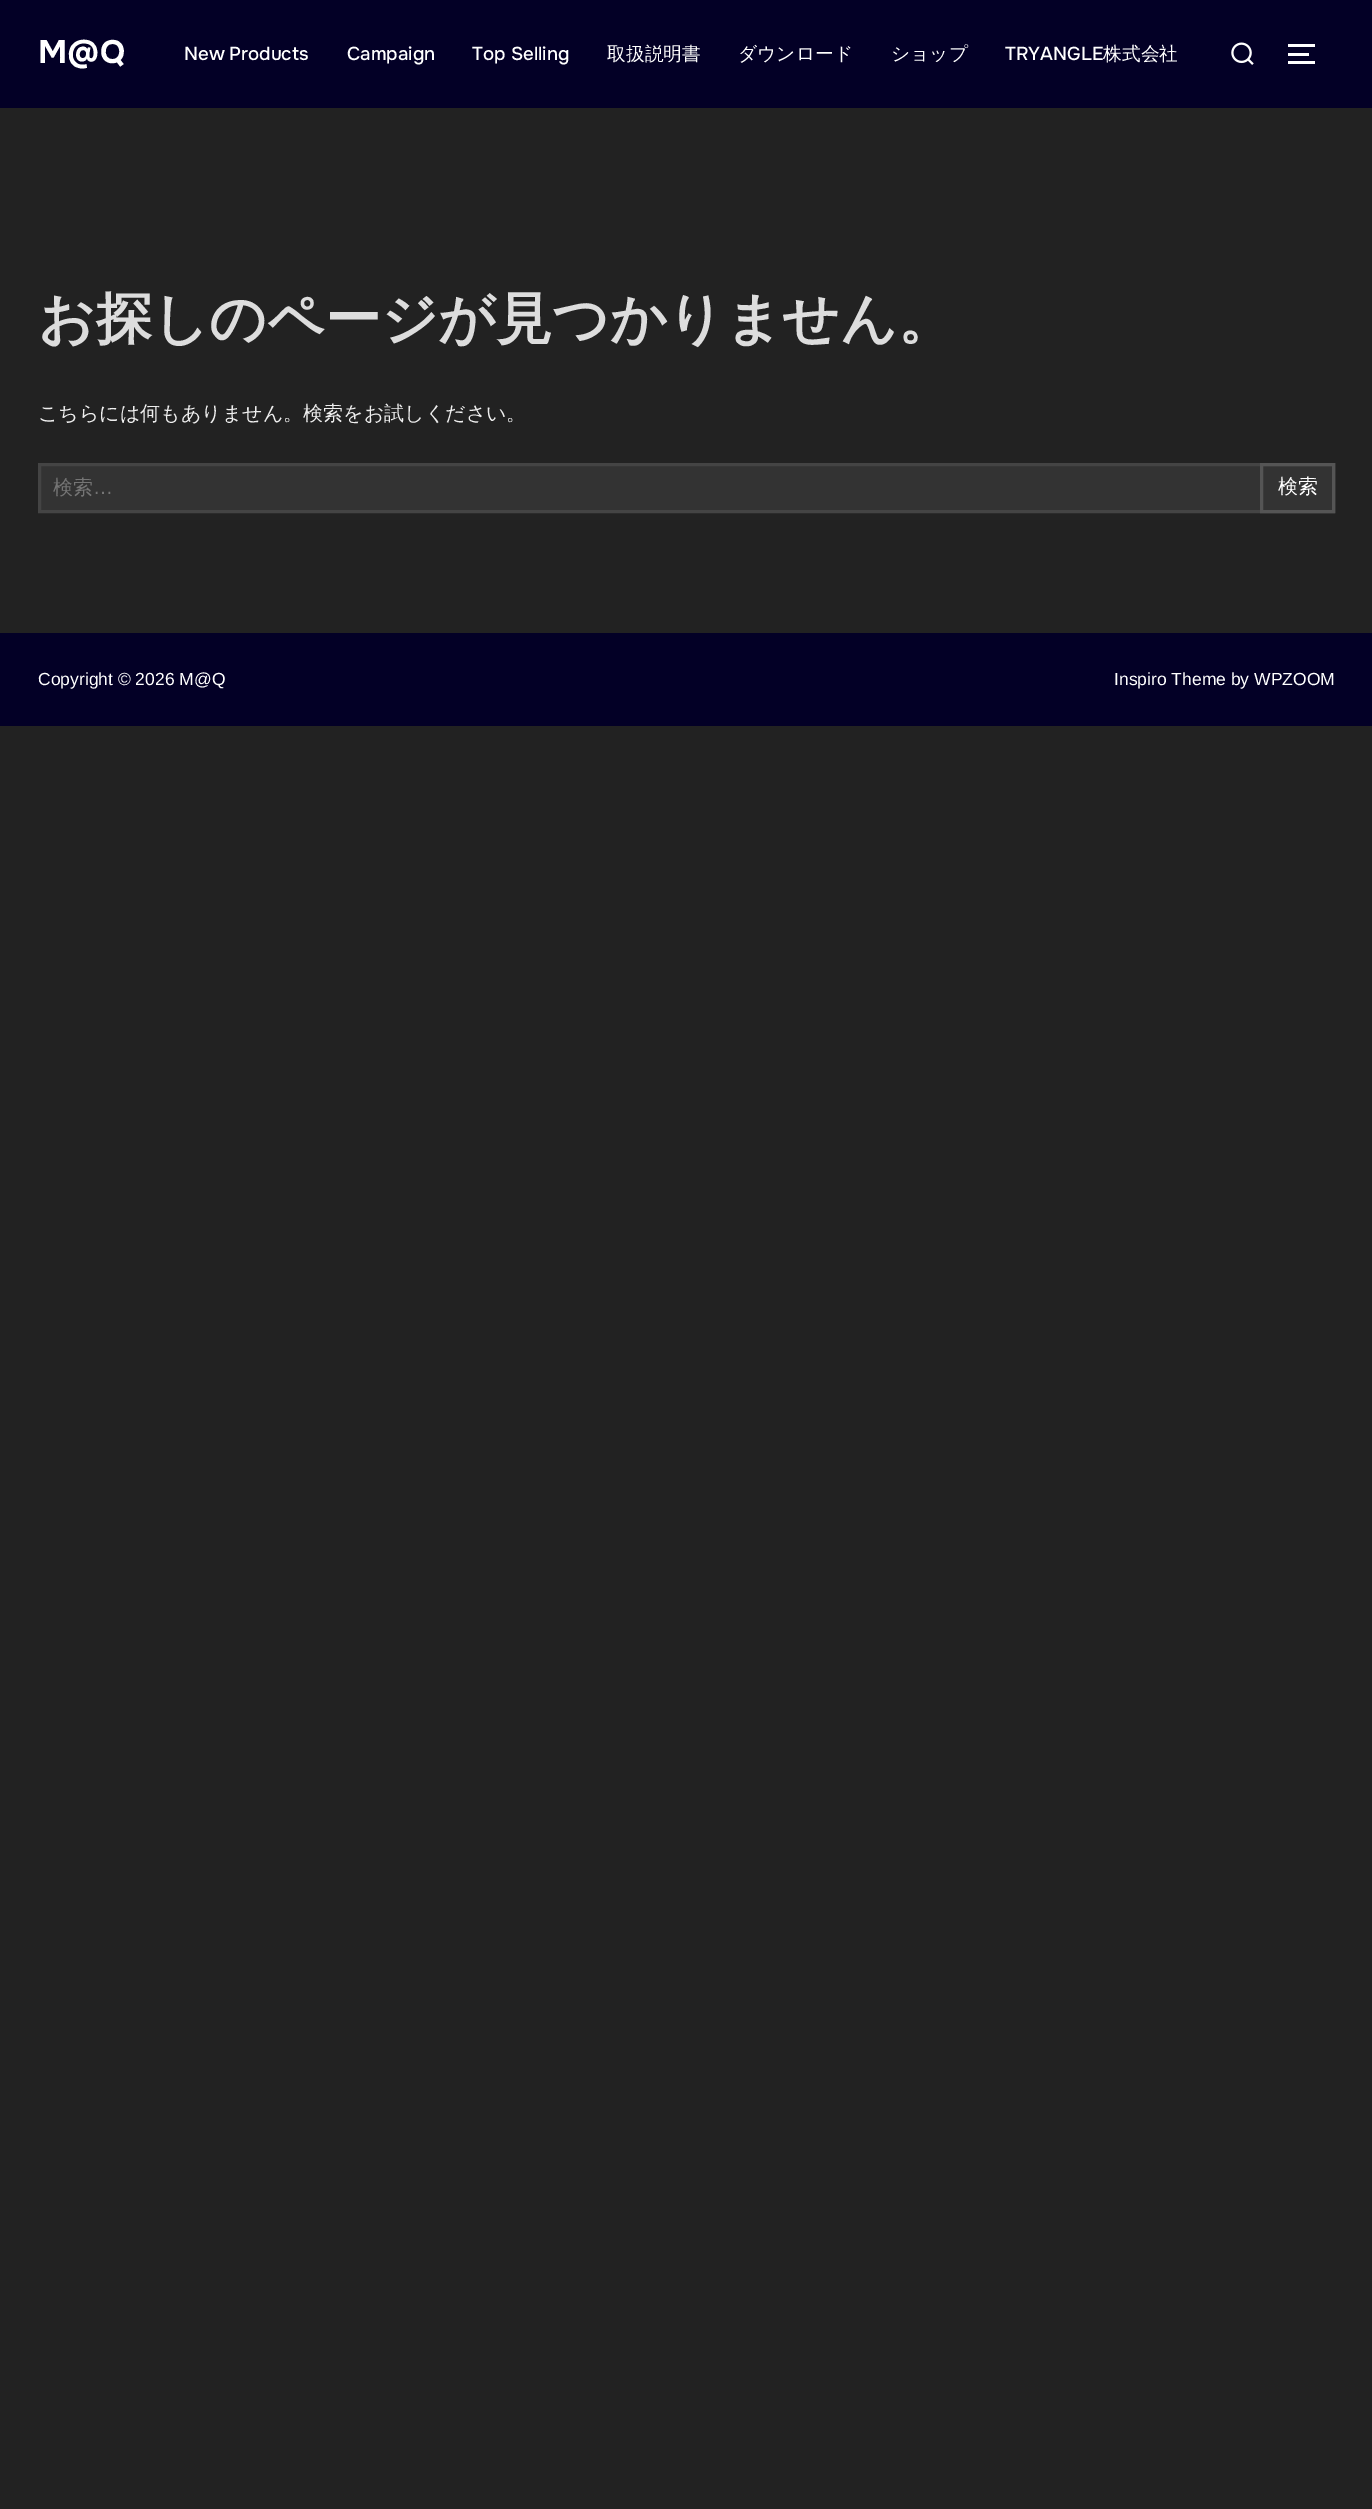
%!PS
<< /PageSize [1372 2509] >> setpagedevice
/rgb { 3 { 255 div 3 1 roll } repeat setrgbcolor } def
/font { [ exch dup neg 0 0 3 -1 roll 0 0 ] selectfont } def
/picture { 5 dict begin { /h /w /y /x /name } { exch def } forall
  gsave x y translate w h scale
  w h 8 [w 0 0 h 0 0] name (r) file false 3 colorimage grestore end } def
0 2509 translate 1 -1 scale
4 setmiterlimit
34 34 34 rgb
0 0 1372 2509 rectfill
3 0 38 rgb
0 0 1372 108 rectfill
(img/1.rgb) 1231 42 23 23 picture
[
  [1288 44 27 3 255 255 255]
  [1288 53 21 3 255 255 255]
  [1288 61 27 3 255 255 255]
] { aload pop rgb rectfill } forall
51 51 51 rgb
39.5 464.5 moveto 1333.5 464.5 lineto 1333.5 511.5 lineto 39.5 511.5 lineto closepath gsave fill grestore
68 68 68 rgb
3 setlinewidth
stroke
85 85 85 rgb
1261.5 464.5 72 47 rectstroke
3 0 38 rgb
0 633 1372 93 rectfill
/Onest-Bold 32.5 font
255 255 255 rgb
38 63 moveto (M@Q) show
/Onest-Medium 18.75 font
184 60 moveto -1 0 32 (New Products) widthshow
347 60 moveto (Campaign) show
472 60 moveto (Top Selling) show
/WenQuanYiZenHei-Medium 18.75 font
[
  [(取扱説明書) 607 60]
  [(ダウンロード) 738 60]
  [(ショップ) 891 60]
] { aload pop moveto show } forall
/Onest-Medium 18.75 font
1005 60 moveto (TRYANGLE) show
/WenQuanYiZenHei-Medium 18.75 font
1103 60 moveto (株式会社) show
/WenQuanYiZenHei-Bold 56.25 font
221 221 221 rgb
38 338 moveto (お探しのページが見つかりません。) show
/WenQuanYiZenHei-Medium 20 font
238 238 238 rgb
38 420 moveto (こちらには何もありません。検索をお試しください。) show
117 117 117 rgb
53 494 moveto (検索) show
/LiberationSans-Regular 20 font
93 494 moveto (…) show
/WenQuanYiZenHei-Medium 20 font
255 255 255 rgb
1278 493 moveto (検索) show
/LiberationSans-Regular 17.5 font
38 685 moveto (Copyright © 2026 M@Q) show
1114 685 moveto (Inspiro Theme by WPZOOM) show
showpage
